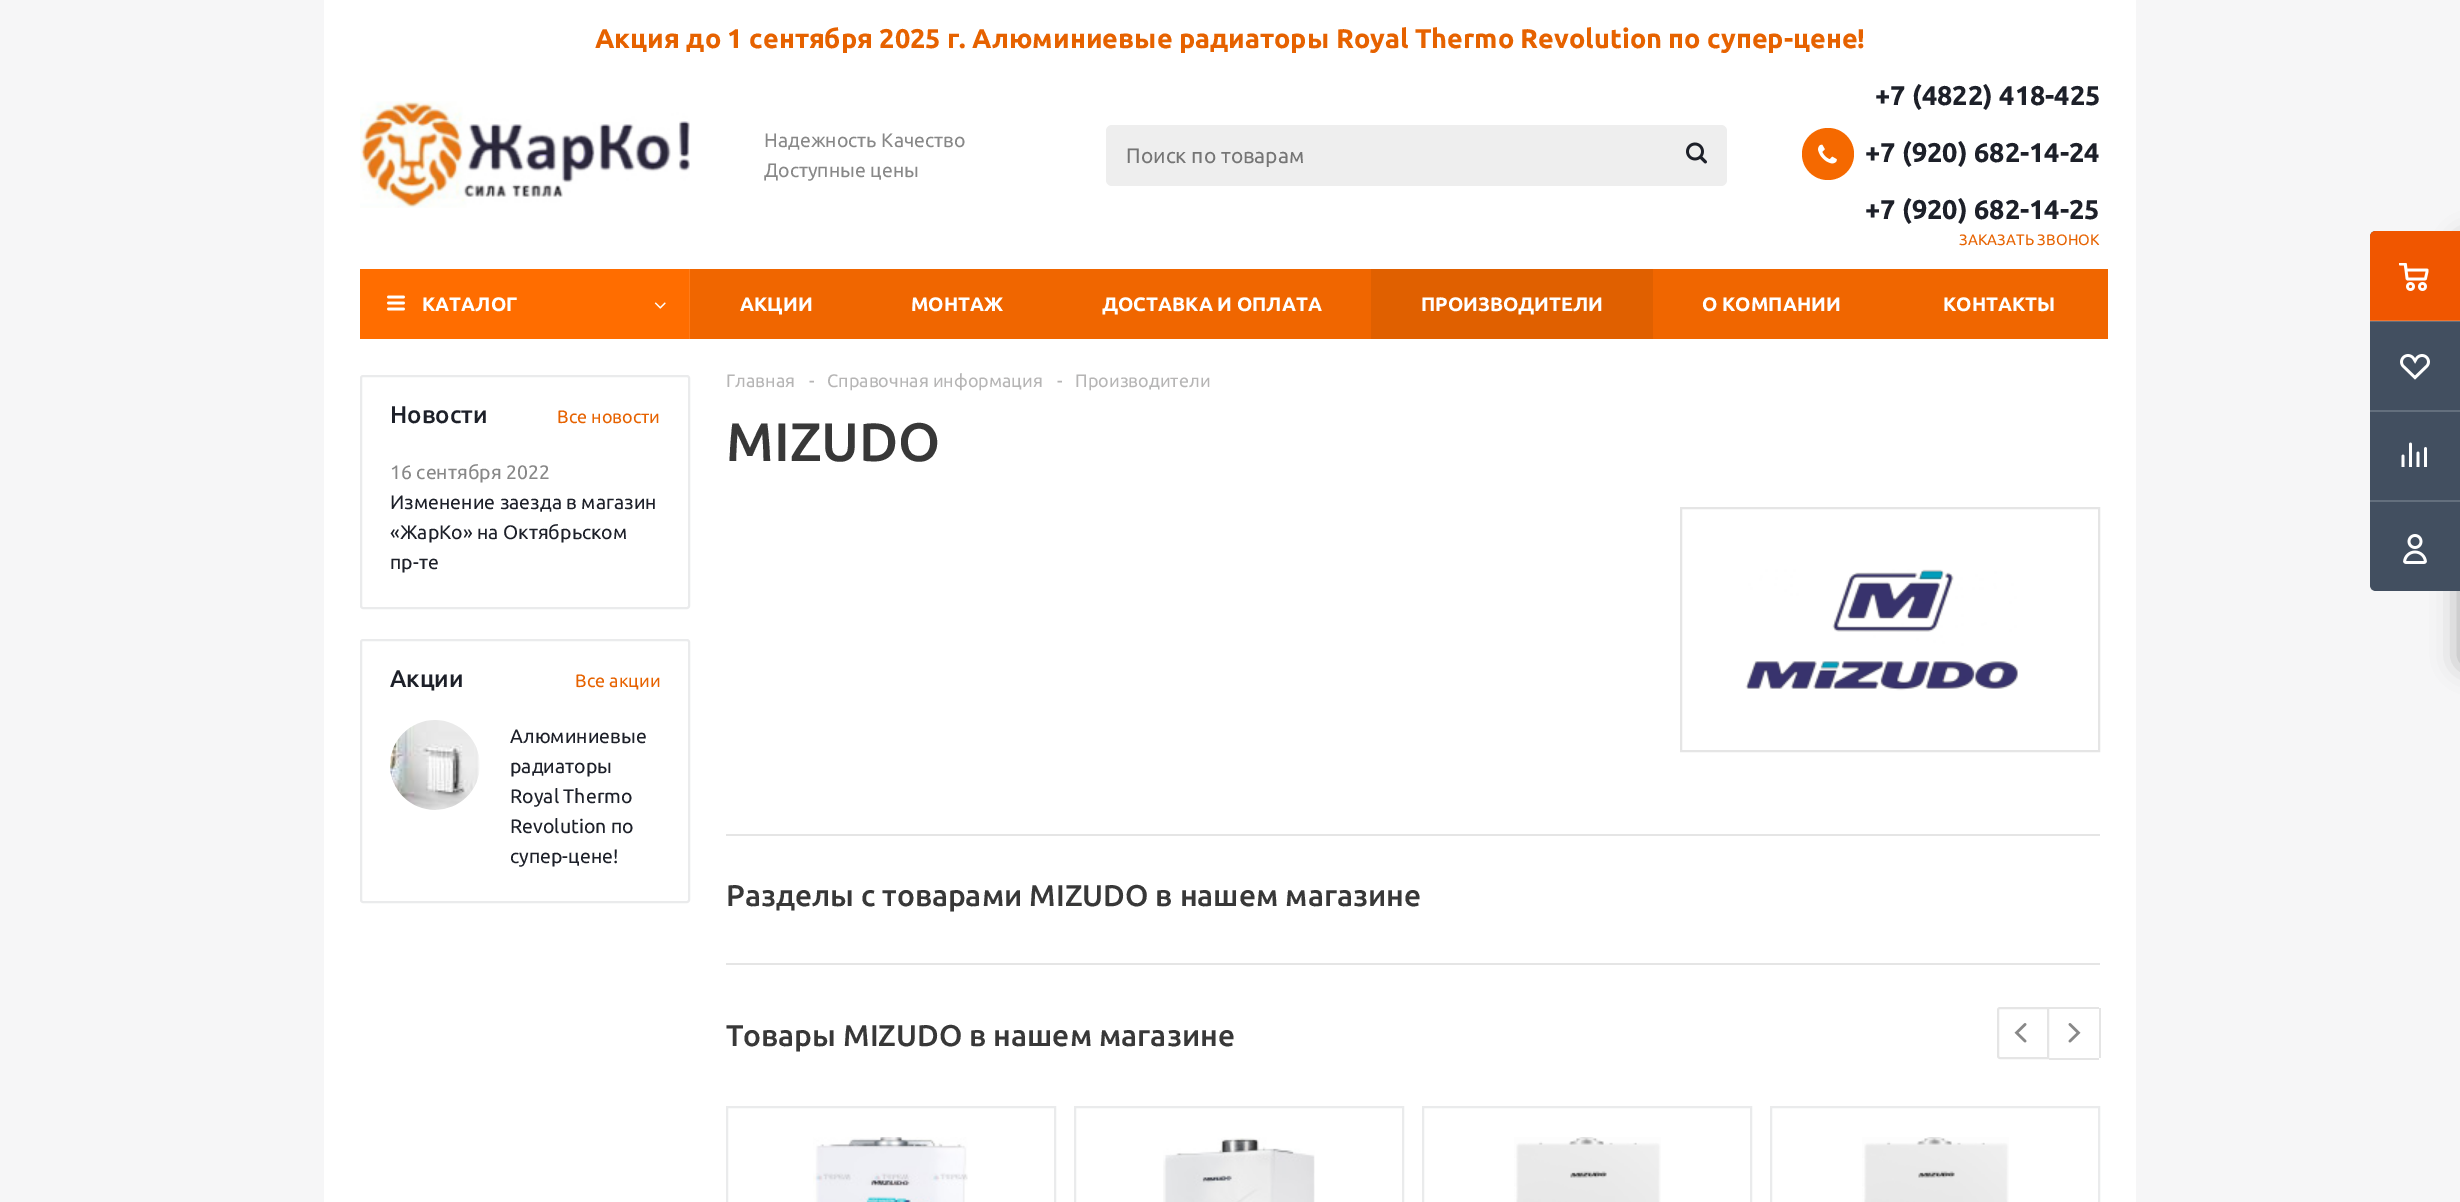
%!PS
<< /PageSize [2460 1202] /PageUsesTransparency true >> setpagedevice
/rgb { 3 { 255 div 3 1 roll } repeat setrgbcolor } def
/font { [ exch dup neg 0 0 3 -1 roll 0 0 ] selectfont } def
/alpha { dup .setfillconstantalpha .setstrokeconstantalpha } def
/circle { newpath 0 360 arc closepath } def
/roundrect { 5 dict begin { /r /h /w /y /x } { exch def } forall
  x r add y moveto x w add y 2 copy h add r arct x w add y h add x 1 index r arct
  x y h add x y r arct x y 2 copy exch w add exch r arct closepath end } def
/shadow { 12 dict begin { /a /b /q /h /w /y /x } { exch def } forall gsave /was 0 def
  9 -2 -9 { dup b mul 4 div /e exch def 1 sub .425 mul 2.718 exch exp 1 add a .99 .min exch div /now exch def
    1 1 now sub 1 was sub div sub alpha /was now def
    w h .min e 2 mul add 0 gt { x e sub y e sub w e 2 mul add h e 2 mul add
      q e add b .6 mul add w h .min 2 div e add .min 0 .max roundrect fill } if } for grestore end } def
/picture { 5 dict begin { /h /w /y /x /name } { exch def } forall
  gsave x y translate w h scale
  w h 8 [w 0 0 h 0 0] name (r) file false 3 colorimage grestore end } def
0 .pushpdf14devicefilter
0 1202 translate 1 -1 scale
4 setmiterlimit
246 246 247 rgb
0 0 2460 1202 rectfill
255 255 255 rgb
324 0 1812 1202 rectfill
(img/1.rgb) 360 101 330 107 picture
238 238 238 rgb
1106 125 621 61 6 roundrect fill
(img/2.rgb) 1686 142 21 22 picture
245 105 0 rgb
1828 154 26 circle fill
(img/3.rgb) 1818 144 19 20 picture
44 44 44 rgb
2460 240 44 425 3 13.5 0.4 shadow
66 79 96 rgb
2376 231 moveto 2460 231 lineto 2460 591 lineto 2376 591 lineto 2372.5 591 2370 588.5 2370 585 curveto 2370 237 lineto 2370 233.5 2372.5 231 2376 231 curveto closepath fill
240 86 0 rgb
2376 231 moveto 2460 231 lineto 2460 321 lineto 2370 321 lineto 2370 237 lineto 2370 233.5 2372.5 231 2376 231 curveto closepath fill
(img/4.rgb) 2399 263 30 28 picture
0.2 alpha
231 237 242 rgb
2370 320 90 2 rectfill
1 alpha
(img/5.rgb) 2400 354 30 26 picture
99 111 125 rgb
2370 410 90 2 rectfill
(img/6.rgb) 2401 442 26 25 picture
2370 500 90 2 rectfill
(img/7.rgb) 2403 534 24 30 picture
[
  [690 269 1418 70 240 102 0]
  [360 269 329 70 255 109 0]
  [689 269 1 70 255 124 26]
] { aload pop rgb rectfill } forall
(img/8.rgb) 387 295 18 16 picture
(img/9.rgb) 654 302 12 7 picture
224 96 0 rgb
1371 269 282 70 rectfill
234 235 236 rgb
2 setlinewidth
361 376 328 232 2 roundrect stroke
361 640 328 262 2 roundrect stroke
(img/10.rgb) 390 720 90 90 picture
229 229 229 rgb
1681 508 418 243 rectstroke
(img/11.rgb) 1745 569 273 122 picture
726 834 1374 2 rectfill
726 963 1374 2 rectfill
2000 1008 moveto 2048 1008 lineto 2048 1058 lineto 2000 1058 lineto 1999 1058 1998 1057 1998 1056 curveto 1998 1010 lineto 1998 1009 1999 1008 2000 1008 curveto closepath stroke
(img/12.rgb) 2014 1023 13 20 picture
[
  [2049 1007 50 2 229 229 229]
  [2099 1008 2 50 229 229 229]
  [2049 1058 50 2 229 229 229]
] { aload pop rgb rectfill } forall
(img/13.rgb) 2068 1023 13 20 picture
234 235 236 rgb
727 1107 328 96 rectstroke
(img/14.rgb) 813 1137 155 65 picture
1075 1107 328 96 rectstroke
(img/15.rgb) 1163 1137 152 65 picture
1423 1107 328 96 rectstroke
(img/16.rgb) 1514 1137 147 65 picture
1771 1107 328 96 rectstroke
(img/16.rgb) 1862 1137 147 65 picture
/Ubuntu-Bold 27 font
230 98 0 rgb
595 48 moveto (Акция до 1 сентября 2025 г. Алюминиевые радиаторы Royal Thermo Revolution по супер-цене!) show
/Ubuntu-Regular 19.5 font
136 136 136 rgb
764 147 moveto (Надежность Качество) show
764 177 moveto (Доступные цены) show
/Ubuntu-Regular 21 font
117 117 117 rgb
1126 163 moveto (Поиск по товарам) show
/Ubuntu-Bold 27 font
29 32 41 rgb
[
  [(+7 \(4822\) 418-425) 1875 105]
  [(+7 \(920\) 682-14-24) 1865 162]
  [(+7 \(920\) 682-14-25) 1865 219]
] { aload pop moveto show } forall
/Ubuntu-Regular 15 font
230 98 0 rgb
1959 245 moveto 0.1 0 (ЗАКАЗАТЬ ЗВОНОК) ashow
/Ubuntu-Bold 19.5 font
255 255 255 rgb
[
  [(КАТАЛОГ) 422 311]
  [(АКЦИИ) 740 311]
  [(МОНТАЖ) 911 311]
  [(ДОСТАВКА И ОПЛАТА) 1102 311]
  [(ПРОИЗВОДИТЕЛИ) 1421 311]
  [(О КОМПАНИИ) 1702 311]
  [(КОНТАКТЫ) 1943 311]
] { aload pop moveto show } forall
/Ubuntu-Medium 24 font
29 32 41 rgb
390 423 moveto (Новости) show
/Ubuntu-Regular 18 font
230 98 0 rgb
557 423 moveto (Все новости) show
/Ubuntu-Regular 19.5 font
136 136 136 rgb
390 479 moveto (16 сентября 2022) show
29 32 41 rgb
[
  [(Изменение заезда в магазин) 390 509]
  [(«ЖарКо» на Октябрьском) 390 539]
  [(пр-те) 390 569]
] { aload pop moveto show } forall
/Ubuntu-Medium 24 font
390 687 moveto (Акции) show
/Ubuntu-Regular 18 font
230 98 0 rgb
575 687 moveto (Все акции) show
/Ubuntu-Regular 19.5 font
29 32 41 rgb
[
  [(Алюминиевые) 510 743]
  [(радиаторы) 510 773]
  [(Royal Thermo) 510 803]
  [(Revolution по) 510 833]
  [(супер-цене!) 510 863]
] { aload pop moveto show } forall
/Ubuntu-Regular 18 font
182 181 181 rgb
[
  [(Главная) 726 387]
  [(-) 809 387]
  [(Справочная информация) 827 387]
  [(-) 1057 387]
  [(Производители) 1075 387]
] { aload pop moveto show } forall
/Ubuntu-Medium 54 font
56 56 56 rgb
726 461 moveto (MIZUDO) show
/Ubuntu-Medium 30 font
726 906 moveto (Разделы с товарами MIZUDO в нашем магазине) show
726 1046 moveto (Товары MIZUDO в нашем магазине) show
.poppdf14devicefilter showpage
